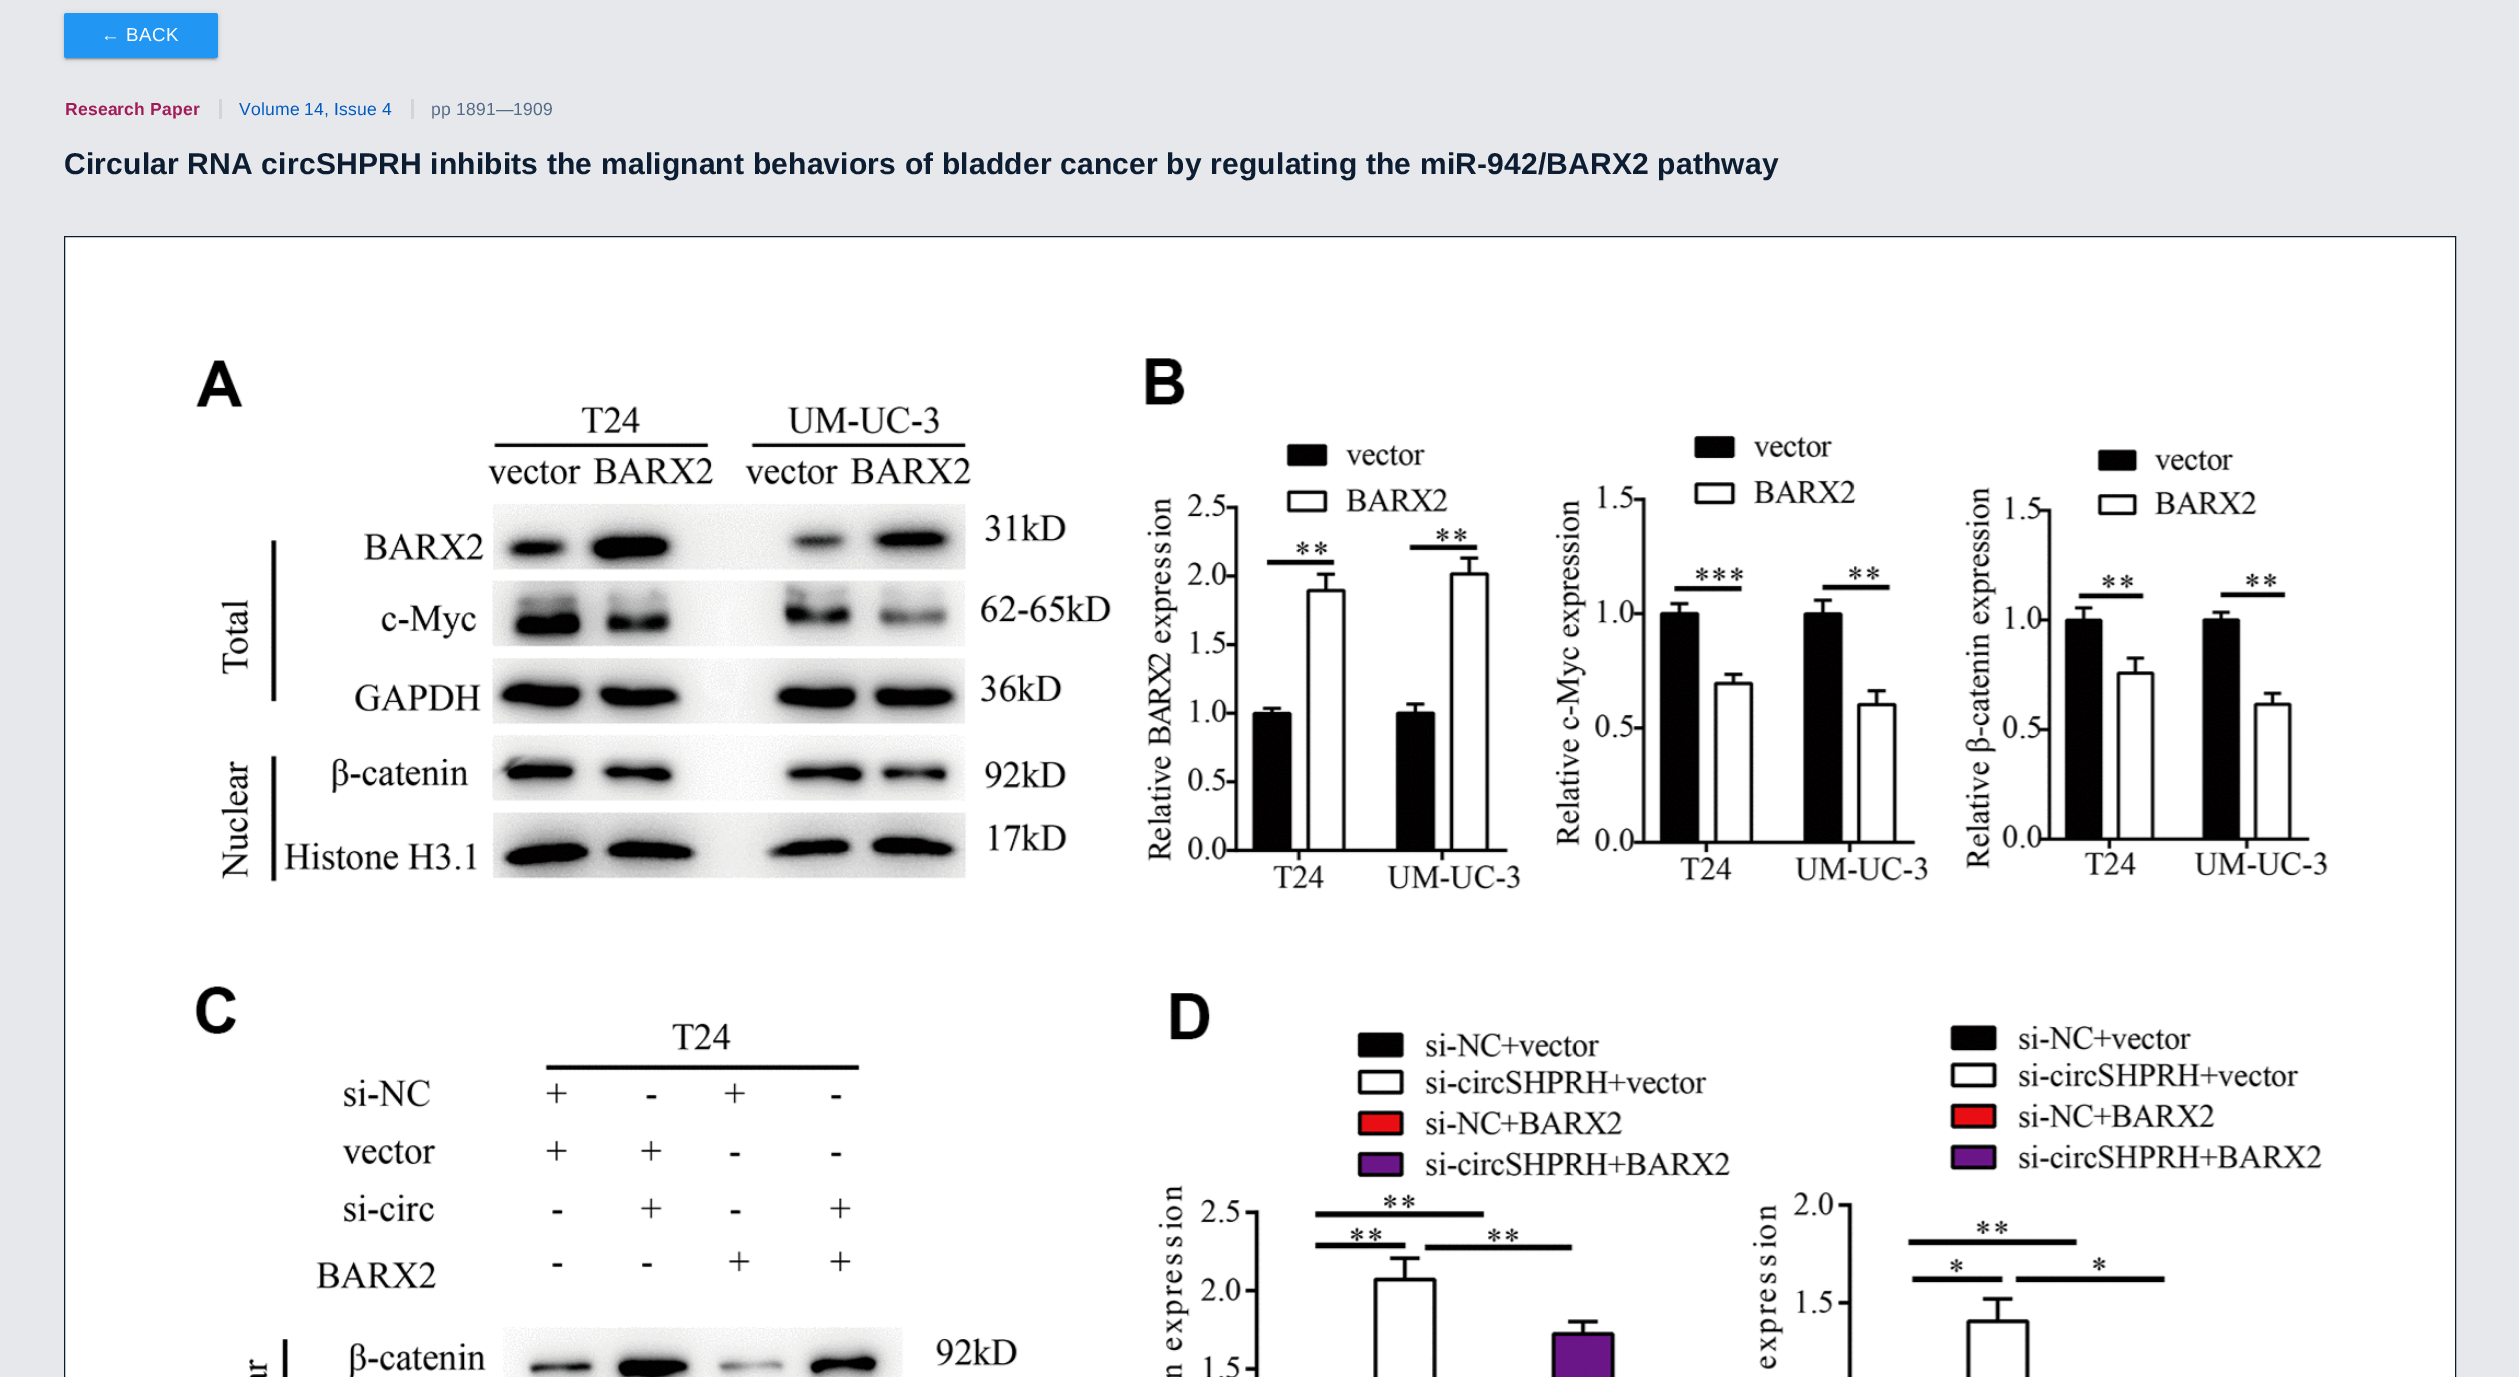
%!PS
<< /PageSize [2519 1377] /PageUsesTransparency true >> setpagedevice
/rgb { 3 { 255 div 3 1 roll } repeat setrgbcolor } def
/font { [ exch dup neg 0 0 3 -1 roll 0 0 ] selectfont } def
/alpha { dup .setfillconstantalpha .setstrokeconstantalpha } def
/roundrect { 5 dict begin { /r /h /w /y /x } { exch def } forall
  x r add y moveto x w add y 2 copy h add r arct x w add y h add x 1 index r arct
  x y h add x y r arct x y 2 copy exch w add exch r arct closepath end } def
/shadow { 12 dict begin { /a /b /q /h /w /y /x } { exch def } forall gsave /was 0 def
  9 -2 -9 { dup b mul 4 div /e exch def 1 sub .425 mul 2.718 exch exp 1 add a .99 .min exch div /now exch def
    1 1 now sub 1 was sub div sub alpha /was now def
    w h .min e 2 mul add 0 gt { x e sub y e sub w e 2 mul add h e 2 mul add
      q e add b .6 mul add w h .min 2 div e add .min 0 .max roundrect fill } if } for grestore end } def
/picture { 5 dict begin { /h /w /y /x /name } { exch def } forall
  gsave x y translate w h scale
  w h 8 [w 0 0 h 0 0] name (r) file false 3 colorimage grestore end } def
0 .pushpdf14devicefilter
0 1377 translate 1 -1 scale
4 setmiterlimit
231 232 236 rgb
0 0 2519 1377 rectfill
0 0 0 rgb
66 19 149 40 0 0.5 0.2 shadow
64 14 154 45 2.5 3 0.12 shadow
64 15 154 45 2.5 1 0.14 shadow
33 150 243 rgb
64 13 154 45 2.5 roundrect fill
209 212 217 rgb
219 99 3 20 rectfill
411 99 3 20 rectfill
255 255 255 rgb
64.5 236.5 moveto 2455.5 236.5 lineto 2455.5 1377.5 lineto 64.5 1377.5 lineto closepath gsave fill grestore
12 29 49 rgb
stroke
(img/1.rgb) 195 358 2133 1019 picture
/LiberationSans-Regular 18.75 font
255 255 255 rgb
101 41 moveto 0.5 0 (← BACK) ashow
/LiberationSans-Bold 17.5 font
161 27 87 rgb
65 115 moveto 0.19 0 (Research Paper) ashow
/LiberationSans-Regular 17.5 font
0 90 194 rgb
239 115 moveto 0.19 0 (Volume 14, Issue 4) ashow
84 107 135 rgb
431 115 moveto 0.19 0 (pp 1891—1909) ashow
/LiberationSans-Bold 30 font
12 29 49 rgb
64 174 moveto 0.19 0 (Circular RNA circSHPRH inhibits the malignant behaviors of bladder cancer by regulating the miR-942/BARX2 pathway) ashow
.poppdf14devicefilter showpage
